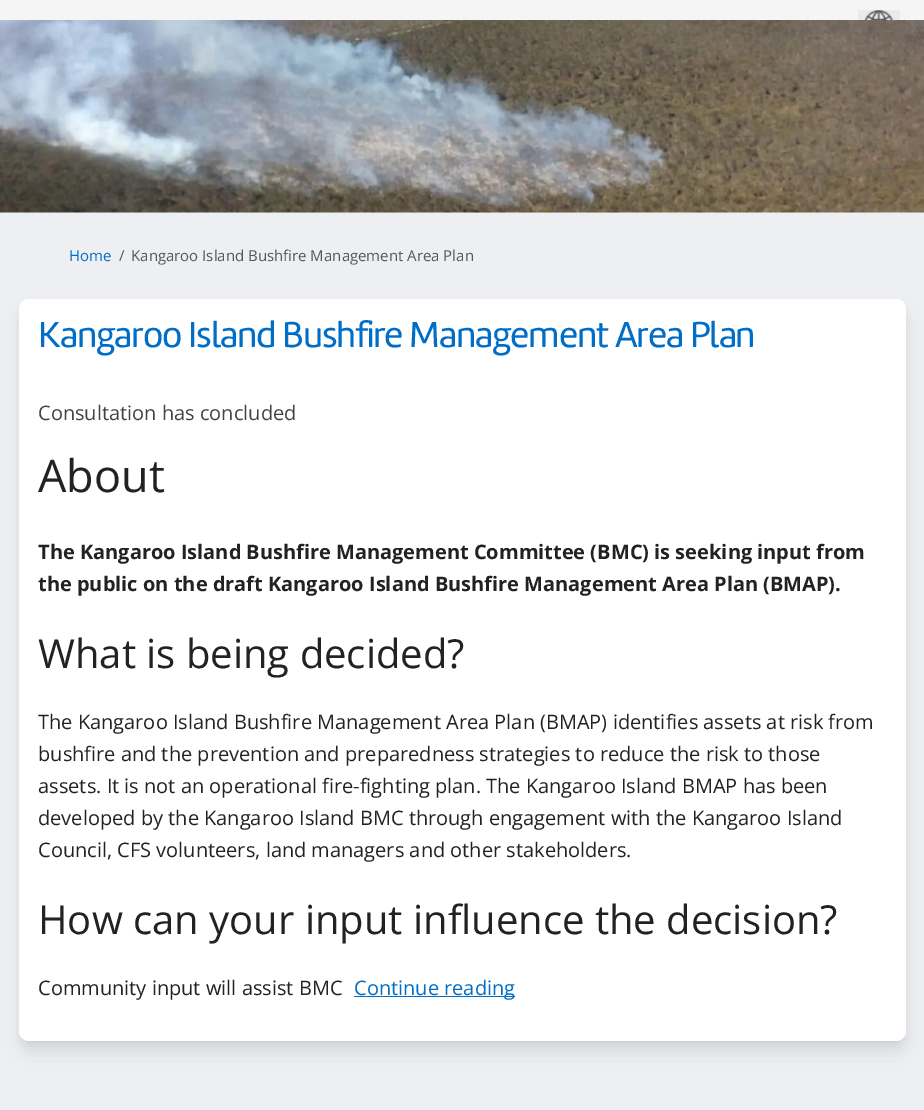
%!PS
<< /PageSize [924 1110] /PageUsesTransparency true >> setpagedevice
/rgb { 3 { 255 div 3 1 roll } repeat setrgbcolor } def
/font { [ exch dup neg 0 0 3 -1 roll 0 0 ] selectfont } def
/alpha { dup .setfillconstantalpha .setstrokeconstantalpha } def
/roundrect { 5 dict begin { /r /h /w /y /x } { exch def } forall
  x r add y moveto x w add y 2 copy h add r arct x w add y h add x 1 index r arct
  x y h add x y r arct x y 2 copy exch w add exch r arct closepath end } def
/shadow { 12 dict begin { /a /b /q /h /w /y /x } { exch def } forall gsave /was 0 def
  9 -2 -9 { dup b mul 4 div /e exch def 1 sub .425 mul 2.718 exch exp 1 add a .99 .min exch div /now exch def
    1 1 now sub 1 was sub div sub alpha /was now def
    w h .min e 2 mul add 0 gt { x e sub y e sub w e 2 mul add h e 2 mul add
      q e add b .6 mul add w h .min 2 div e add .min 0 .max roundrect fill } if } for grestore end } def
/picture { 5 dict begin { /h /w /y /x /name } { exch def } forall
  gsave x y translate w h scale
  w h 8 [w 0 0 h 0 0] name (r) file false 3 colorimage grestore end } def
0 .pushpdf14devicefilter
0 1110 translate 1 -1 scale
4 setmiterlimit
237 239 242 rgb
0 0 924 1110 rectfill
245 245 245 rgb
0 0 924 20 rectfill
232 234 237 rgb
858 10 42 10 rectfill
(img/1.rgb) 864 10 29 10 picture
(img/2.rgb) 0 20 924 193 picture
0 0 0 rgb
21 306 883 738 8 4 0.05 shadow
23 315 880 735 6 9.5 0.1 shadow
255 255 255 rgb
19 299 887 742 10 roundrect fill
0 109 199 rgb
354 996 161 1 rectfill
/OpenSans-Regular 15 font
69 261 moveto (Home) show
85 85 85 rgb
119 261 moveto (/) show
131 261 moveto (Kangaroo Island Bushfire Management Area Plan) show
/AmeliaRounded-Regular 37.5 font
0 109 199 rgb
38 347 moveto -1.1 0 (Kangaroo Island Bushfire Management Area Plan) ashow
/OpenSans-Regular 20 font
67 67 67 rgb
38 420 moveto (Consultation has concluded) show
/OpenSans-Regular 45 font
34 34 34 rgb
38 492 moveto (About) show
/OpenSans-Bold 20 font
38 559 moveto (The Kangaroo Island Bushfire Management Committee \(BMC\) is seeking input from) show
38 591 moveto (the public on the draft Kangaroo Island Bushfire Management Area Plan \(BMAP\).) show
/OpenSans-Regular 40 font
38 668 moveto (What is being decided?) show
/OpenSans-Regular 20 font
[
  [(The Kangaroo Island Bushfire Management Area Plan \(BMAP\) identifies assets at risk from) 38 729]
  [(bushfire and the prevention and preparedness strategies to reduce the risk to those) 38 761]
  [(assets. It is not an operational fire-fighting plan. The Kangaroo Island BMAP has been) 38 793]
  [(developed by the Kangaroo Island BMC through engagement with the Kangaroo Island) 38 825]
  [(Council, CFS volunteers, land managers and other stakeholders.) 38 857]
] { aload pop moveto show } forall
/OpenSans-Regular 40 font
38 934 moveto (How can your input influence the decision?) show
/OpenSans-Regular 20 font
38 995 moveto (Community input will assist BMC) show
0 109 199 rgb
354 995 moveto (Continue reading) show
.poppdf14devicefilter showpage
